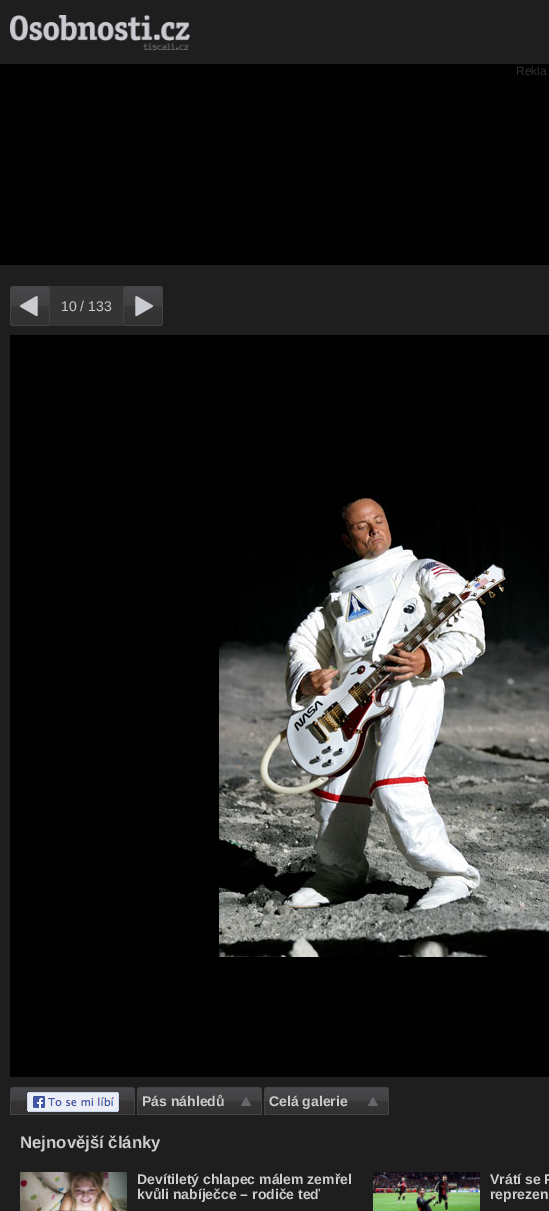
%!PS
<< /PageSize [549 1211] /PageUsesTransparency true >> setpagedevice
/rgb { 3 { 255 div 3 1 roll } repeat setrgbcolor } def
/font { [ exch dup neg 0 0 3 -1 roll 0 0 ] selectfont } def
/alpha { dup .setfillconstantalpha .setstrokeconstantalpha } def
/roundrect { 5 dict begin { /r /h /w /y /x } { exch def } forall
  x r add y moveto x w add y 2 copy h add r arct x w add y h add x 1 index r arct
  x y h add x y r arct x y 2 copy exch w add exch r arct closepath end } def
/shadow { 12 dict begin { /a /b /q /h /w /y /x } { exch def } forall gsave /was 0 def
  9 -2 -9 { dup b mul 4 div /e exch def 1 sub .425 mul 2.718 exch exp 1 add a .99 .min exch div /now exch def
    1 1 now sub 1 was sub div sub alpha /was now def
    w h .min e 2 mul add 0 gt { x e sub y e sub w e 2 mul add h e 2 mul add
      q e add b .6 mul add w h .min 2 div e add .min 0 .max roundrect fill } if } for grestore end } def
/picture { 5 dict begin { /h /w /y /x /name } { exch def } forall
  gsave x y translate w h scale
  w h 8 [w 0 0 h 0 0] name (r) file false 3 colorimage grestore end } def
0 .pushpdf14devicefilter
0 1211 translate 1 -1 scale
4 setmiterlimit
0 0 0 rgb
0 0 549 1211 rectfill
0 5 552 64 0 1 0.27 shadow
31 30 30 rgb
0 0 549 64 rectfill
(img/1.rgb) 10 15 180 35 picture
0 265 549 946 rectfill
53 52 52 rgb
10 286 153 40 3 roundrect fill
(img/2.rgb) 10 286 40 40 picture
(img/3.rgb) 123 286 40 40 picture
0 0 0 rgb
10 335 539 742 rectfill
(img/4.rgb) 219 497 330 460 picture
(img/5.rgb) 10 1087 125 28 picture
(img/6.rgb) 27 1092 92 20 picture
(img/7.rgb) 137 1087 125 28 picture
(img/7.rgb) 264 1087 125 28 picture
(img/8.rgb) 20 1172 107 39 picture
(img/9.rgb) 373 1172 107 39 picture
/LiberationSans-Regular 12 font
50 50 50 rgb
516 75 moveto (Rekla) show
/LiberationSans-Regular 14 font
204 204 204 rgb
61 311 moveto (10 / 133) show
/LiberationSans-Bold 14 font
142 1106 moveto (Pás náhledů) show
269 1106 moveto (Celá galerie) show
/LiberationSans-Bold 16.75 font
20 1148 moveto (Nejnovější články) show
/LiberationSans-Bold 14 font
[
  [(Devítiletý chlapec málem zemřel) 137 1184]
  [(kvůli nabíječce – rodiče teď) 137 1199]
  [(Vrátí se P) 490 1184]
  [(reprezen) 490 1199]
] { aload pop moveto show } forall
.poppdf14devicefilter showpage
